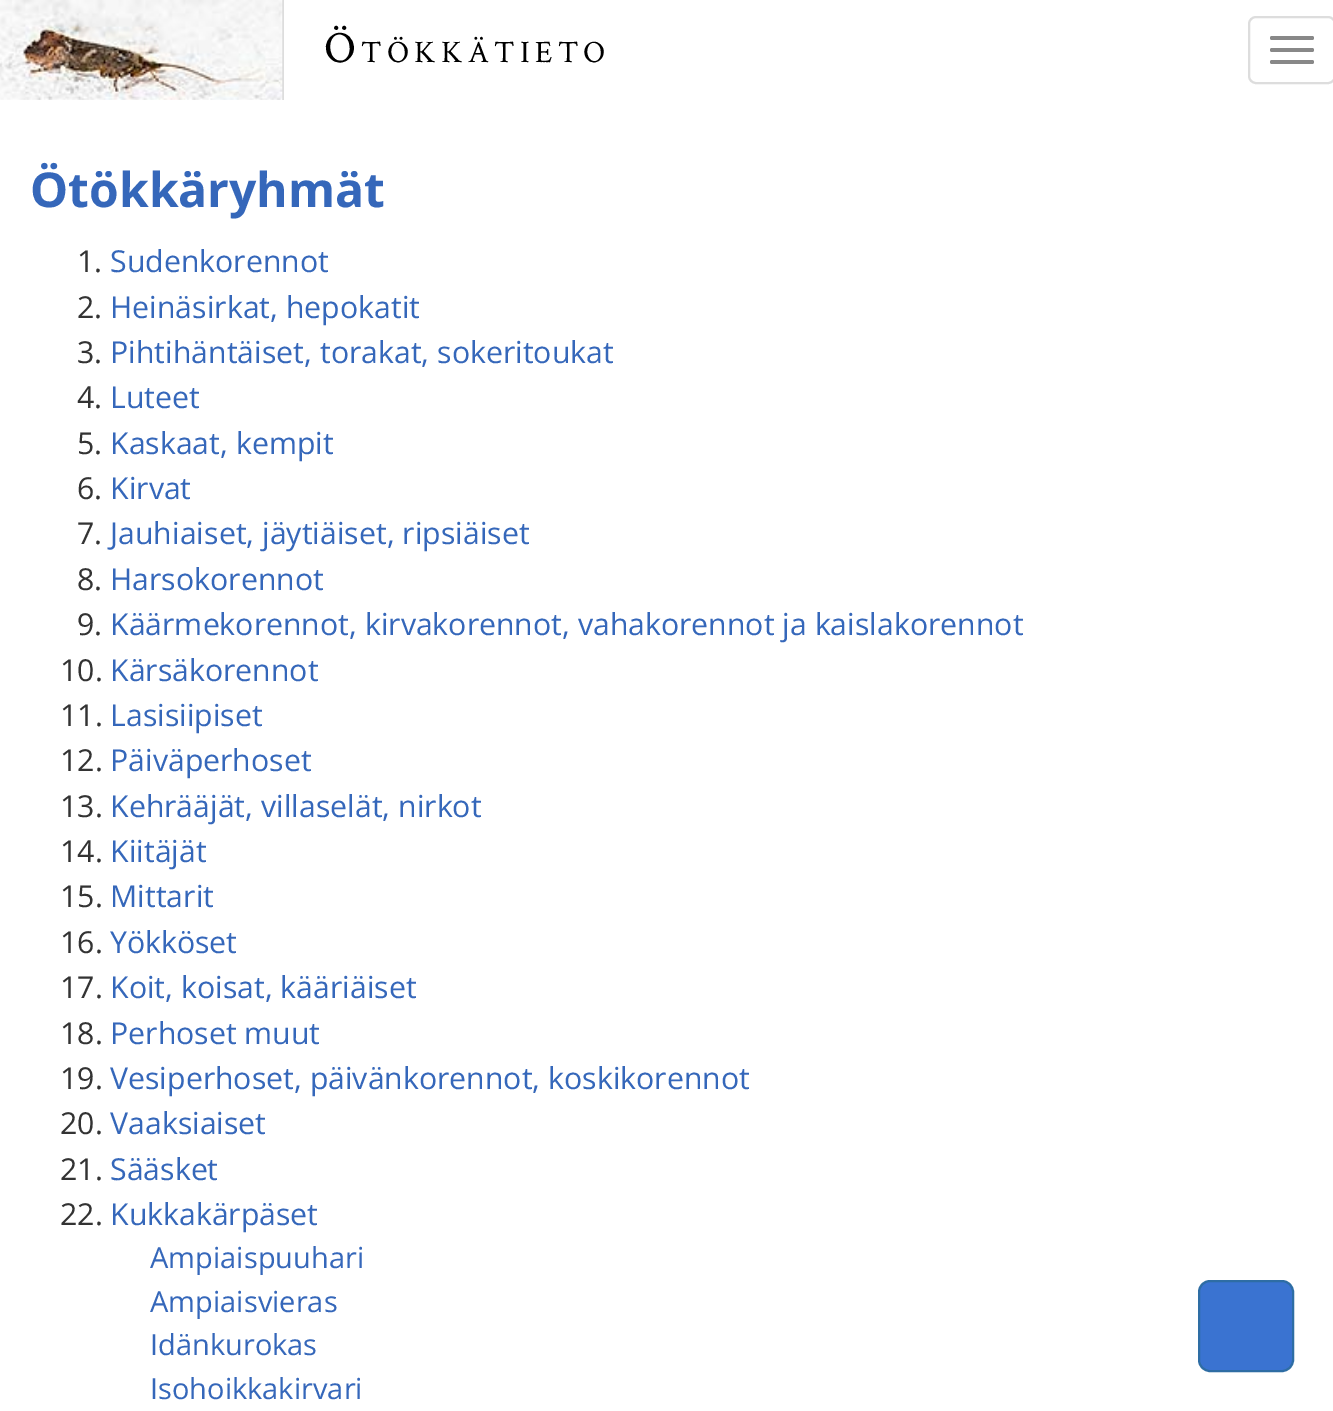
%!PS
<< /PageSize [1333 1411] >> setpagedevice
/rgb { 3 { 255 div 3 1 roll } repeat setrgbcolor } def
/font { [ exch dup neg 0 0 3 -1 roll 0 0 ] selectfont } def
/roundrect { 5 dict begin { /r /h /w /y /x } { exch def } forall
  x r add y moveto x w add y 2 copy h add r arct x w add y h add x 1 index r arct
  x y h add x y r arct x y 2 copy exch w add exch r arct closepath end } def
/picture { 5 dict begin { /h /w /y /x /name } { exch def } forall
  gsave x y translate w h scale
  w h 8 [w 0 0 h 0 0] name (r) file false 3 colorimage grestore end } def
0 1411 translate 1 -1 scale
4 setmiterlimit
255 255 255 rgb
0 0 1333 1411 rectfill
221 221 221 rgb
282 0 2 100 rectfill
(img/1.rgb) 0 0 283 100 picture
2 setlinewidth
1249 17 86 66 7 roundrect stroke
136 136 136 rgb
1270 36 44 4 2 roundrect fill
1270 48 44 4 2 roundrect fill
1270 60 44 4 2 roundrect fill
58 115 209 rgb
1199 1281 94 90 11 roundrect gsave fill grestore
46 109 164 rgb
stroke
/CrimsonText-Regular 45 font
0 0 0 rgb
324 62 moveto 5.4 0 (Ö) ashow
/CrimsonText-Regular 31.25 font
361 62 moveto 5.4 0 (TÖKKÄTIETO) ashow
/OpenSans-Bold 48 font
53 103 186 rgb
30 207 moveto (Ötökkäryhmät) show
/OpenSans-Regular 30.25 font
51 51 51 rgb
77 272 moveto (1.) show
53 103 186 rgb
110 272 moveto (Sudenkorennot) show
51 51 51 rgb
77 318 moveto (2.) show
53 103 186 rgb
110 318 moveto (Heinäsirkat, hepokatit) show
51 51 51 rgb
77 363 moveto (3.) show
53 103 186 rgb
110 363 moveto (Pihtihäntäiset, torakat, sokeritoukat) show
51 51 51 rgb
77 408 moveto (4.) show
53 103 186 rgb
110 408 moveto (Luteet) show
51 51 51 rgb
77 454 moveto (5.) show
53 103 186 rgb
110 454 moveto (Kaskaat, kempit) show
51 51 51 rgb
77 499 moveto (6.) show
53 103 186 rgb
110 499 moveto (Kirvat) show
51 51 51 rgb
77 544 moveto (7.) show
53 103 186 rgb
110 544 moveto (Jauhiaiset, jäytiäiset, ripsiäiset) show
51 51 51 rgb
77 590 moveto (8.) show
53 103 186 rgb
110 590 moveto (Harsokorennot) show
51 51 51 rgb
77 635 moveto (9.) show
53 103 186 rgb
110 635 moveto (Käärmekorennot, kirvakorennot, vahakorennot ja kaislakorennot) show
51 51 51 rgb
60 681 moveto (10.) show
53 103 186 rgb
110 681 moveto (Kärsäkorennot) show
51 51 51 rgb
60 726 moveto (11.) show
53 103 186 rgb
110 726 moveto (Lasisiipiset) show
51 51 51 rgb
60 771 moveto (12.) show
53 103 186 rgb
110 771 moveto (Päiväperhoset) show
51 51 51 rgb
60 817 moveto (13.) show
53 103 186 rgb
110 817 moveto (Kehrääjät, villaselät, nirkot) show
51 51 51 rgb
60 862 moveto (14.) show
53 103 186 rgb
110 862 moveto (Kiitäjät) show
51 51 51 rgb
60 907 moveto (15.) show
53 103 186 rgb
110 907 moveto (Mittarit) show
51 51 51 rgb
60 953 moveto (16.) show
53 103 186 rgb
110 953 moveto (Yökköset) show
51 51 51 rgb
60 998 moveto (17.) show
53 103 186 rgb
110 998 moveto (Koit, koisat, kääriäiset) show
51 51 51 rgb
60 1044 moveto (18.) show
53 103 186 rgb
110 1044 moveto (Perhoset muut) show
51 51 51 rgb
60 1089 moveto (19.) show
53 103 186 rgb
110 1089 moveto (Vesiperhoset, päivänkorennot, koskikorennot) show
51 51 51 rgb
60 1134 moveto (20.) show
53 103 186 rgb
110 1134 moveto (Vaaksiaiset) show
51 51 51 rgb
60 1180 moveto (21.) show
53 103 186 rgb
110 1180 moveto (Sääsket) show
51 51 51 rgb
60 1225 moveto (22.) show
53 103 186 rgb
110 1225 moveto (Kukkakärpäset) show
/OpenSans-Regular 29 font
[
  [(Ampiaispuuhari) 150 1268]
  [(Ampiaisvieras) 150 1312]
  [(Idänkurokas) 150 1355]
  [(Isohoikkakirvari) 150 1399]
] { aload pop moveto show } forall
showpage
